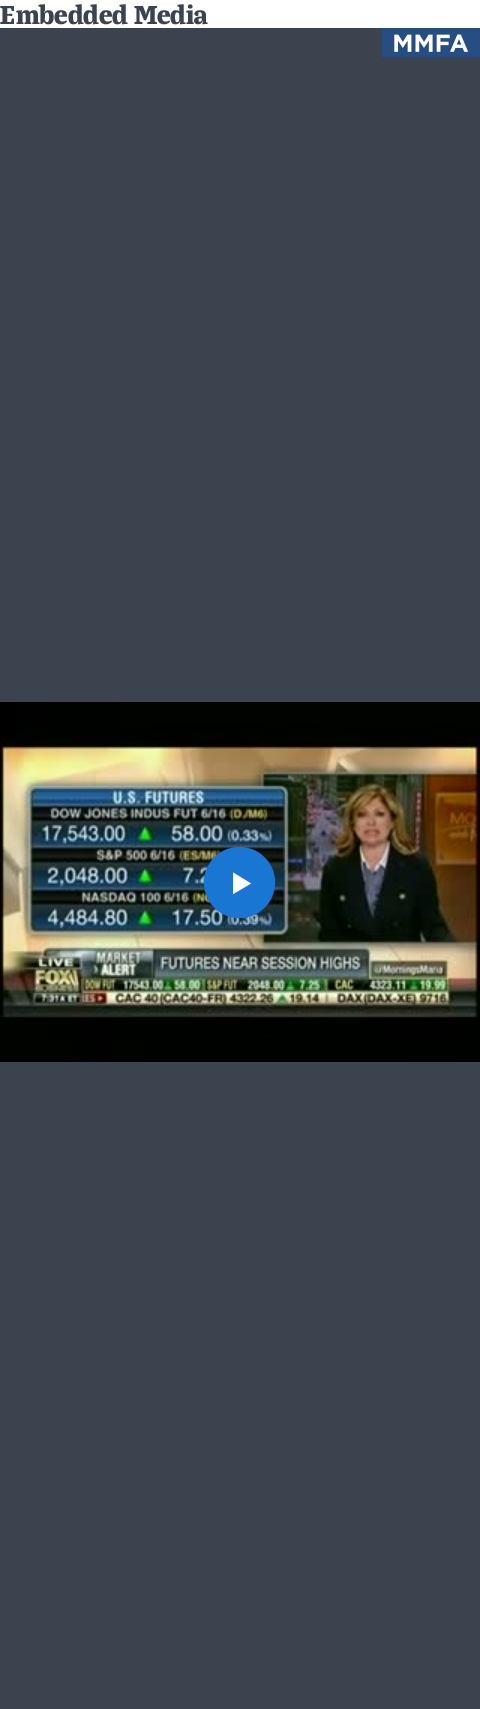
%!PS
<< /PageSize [480 1709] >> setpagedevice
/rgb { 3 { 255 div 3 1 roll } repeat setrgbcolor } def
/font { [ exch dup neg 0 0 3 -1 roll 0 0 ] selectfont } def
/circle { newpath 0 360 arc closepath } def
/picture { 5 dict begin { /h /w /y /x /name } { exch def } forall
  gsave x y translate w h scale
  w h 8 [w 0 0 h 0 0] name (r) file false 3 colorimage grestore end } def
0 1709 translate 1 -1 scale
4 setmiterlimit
255 255 255 rgb
0 0 480 1709 rectfill
58 67 78 rgb
0 28 480 1681 rectfill
(img/1.rgb) 0 702 480 360 picture
(img/2.rgb) 382 28 98 29 picture
25 118 210 rgb
239.5 882.5 35.5 circle fill
255 255 255 rgb
233 872.5 moveto 251 883.5 lineto 233 894 lineto closepath eofill
/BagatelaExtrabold-ExtraBold 28 font
58 67 78 rgb
0 24 moveto (Embedded Media) show
showpage
